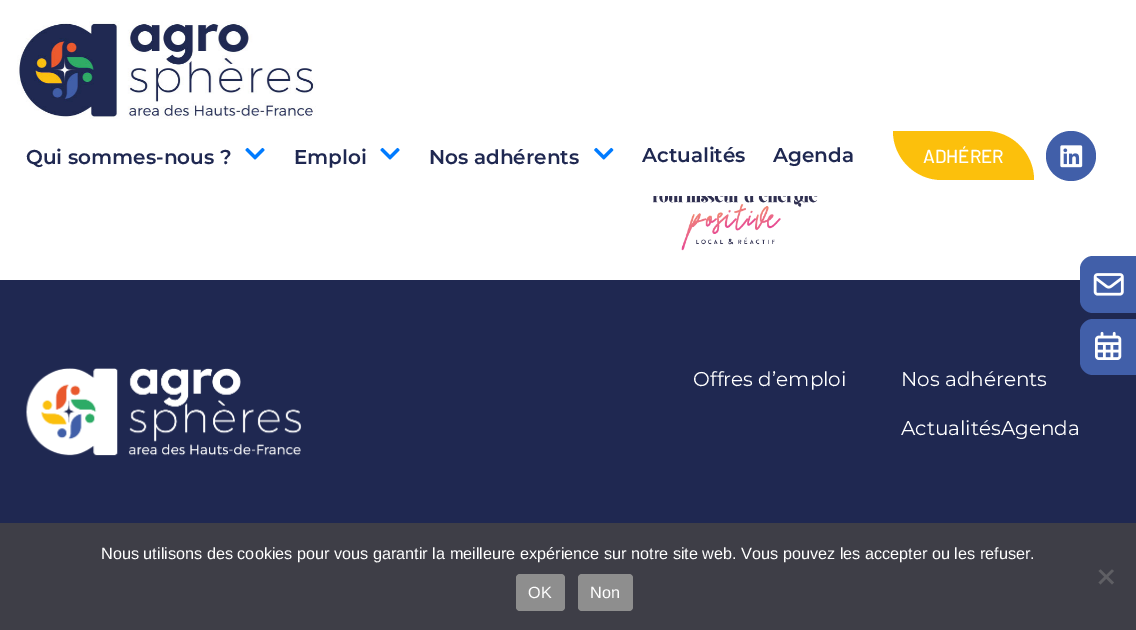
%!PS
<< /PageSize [1136 630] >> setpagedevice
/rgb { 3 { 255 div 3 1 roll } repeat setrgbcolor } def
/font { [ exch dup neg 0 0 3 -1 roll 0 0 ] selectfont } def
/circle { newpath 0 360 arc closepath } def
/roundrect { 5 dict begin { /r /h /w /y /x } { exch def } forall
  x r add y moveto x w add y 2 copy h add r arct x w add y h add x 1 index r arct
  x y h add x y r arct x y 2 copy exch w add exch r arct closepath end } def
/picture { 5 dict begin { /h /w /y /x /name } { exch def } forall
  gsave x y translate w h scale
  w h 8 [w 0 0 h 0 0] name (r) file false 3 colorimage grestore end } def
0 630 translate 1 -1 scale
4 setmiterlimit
255 255 255 rgb
0 0 1136 630 rectfill
(img/1.rgb) 17 21 299 98 picture
(img/2.rgb) 245 147 20 13 picture
(img/2.rgb) 380 147 20 13 picture
(img/3.rgb) 594 147 20 13 picture
252 192 12 rgb
893 131 moveto 985 131 lineto 1012 131 1034 153 1034 180 curveto 942 180 lineto 915 180 893 158 893 131 curveto closepath fill
65 95 169 rgb
1071 156 25 circle fill
(img/4.rgb) 1060 145 23 23 picture
(img/5.rgb) 653 196 165 55 picture
31 40 81 rgb
0 280 1136 243 rectfill
(img/6.rgb) 26 368 276 88 picture
65 95 169 rgb
1093 256 moveto 1136 256 lineto 1136 313 lineto 1093 313 lineto 1086 313 1080 307 1080 300 curveto 1080 269 lineto 1080 262 1086 256 1093 256 curveto closepath fill
(img/7.rgb) 1093 273 31 23 picture
1093 319 moveto 1136 319 lineto 1136 375 lineto 1093 375 lineto 1086 375 1080 369 1080 362 curveto 1080 332 lineto 1080 325 1086 319 1093 319 curveto closepath fill
(img/8.rgb) 1095 331 27 29 picture
62 62 71 rgb
0 523 1136 107 rectfill
95 95 100 rgb
1112 569.5 moveto 1114 571 lineto 1100.5 584.5 lineto 1098.5 582.5 lineto closepath fill
1098.5 571 moveto 1100.5 569.5 lineto 1114 582.5 lineto 1112 584.5 lineto closepath fill
142 142 142 rgb
516 574 49 37 4 roundrect fill
578 574 55 37 4 roundrect fill
/Montserrat-SemiBold 20 font
31 40 81 rgb
[
  [(Qui sommes-nous ?) 26 164]
  [(Emploi) 294 164]
  [(Nos adhérents) 429 164]
  [(Actualités) 642 162]
  [(Agenda) 773 162]
] { aload pop moveto show } forall
/Barlow-Medium 18.75 font
255 255 255 rgb
923 163 moveto (ADHÉRER) show
/Montserrat-Regular 20 font
[
  [(Offres d’emploi) 693 386]
  [(Nos adhérents) 901 386]
  [(ActualitésAgenda) 901 435]
] { aload pop moveto show } forall
/LiberationSans-Regular 16.25 font
[
  [(Nous utilisons des cookies pour vous garantir la meilleure expérience sur notre site web. Vous pouvez les accepter ou les refuser.) 101 559]
  [(OK) 528 598]
  [(Non) 590 598]
] { aload pop moveto show } forall
showpage
